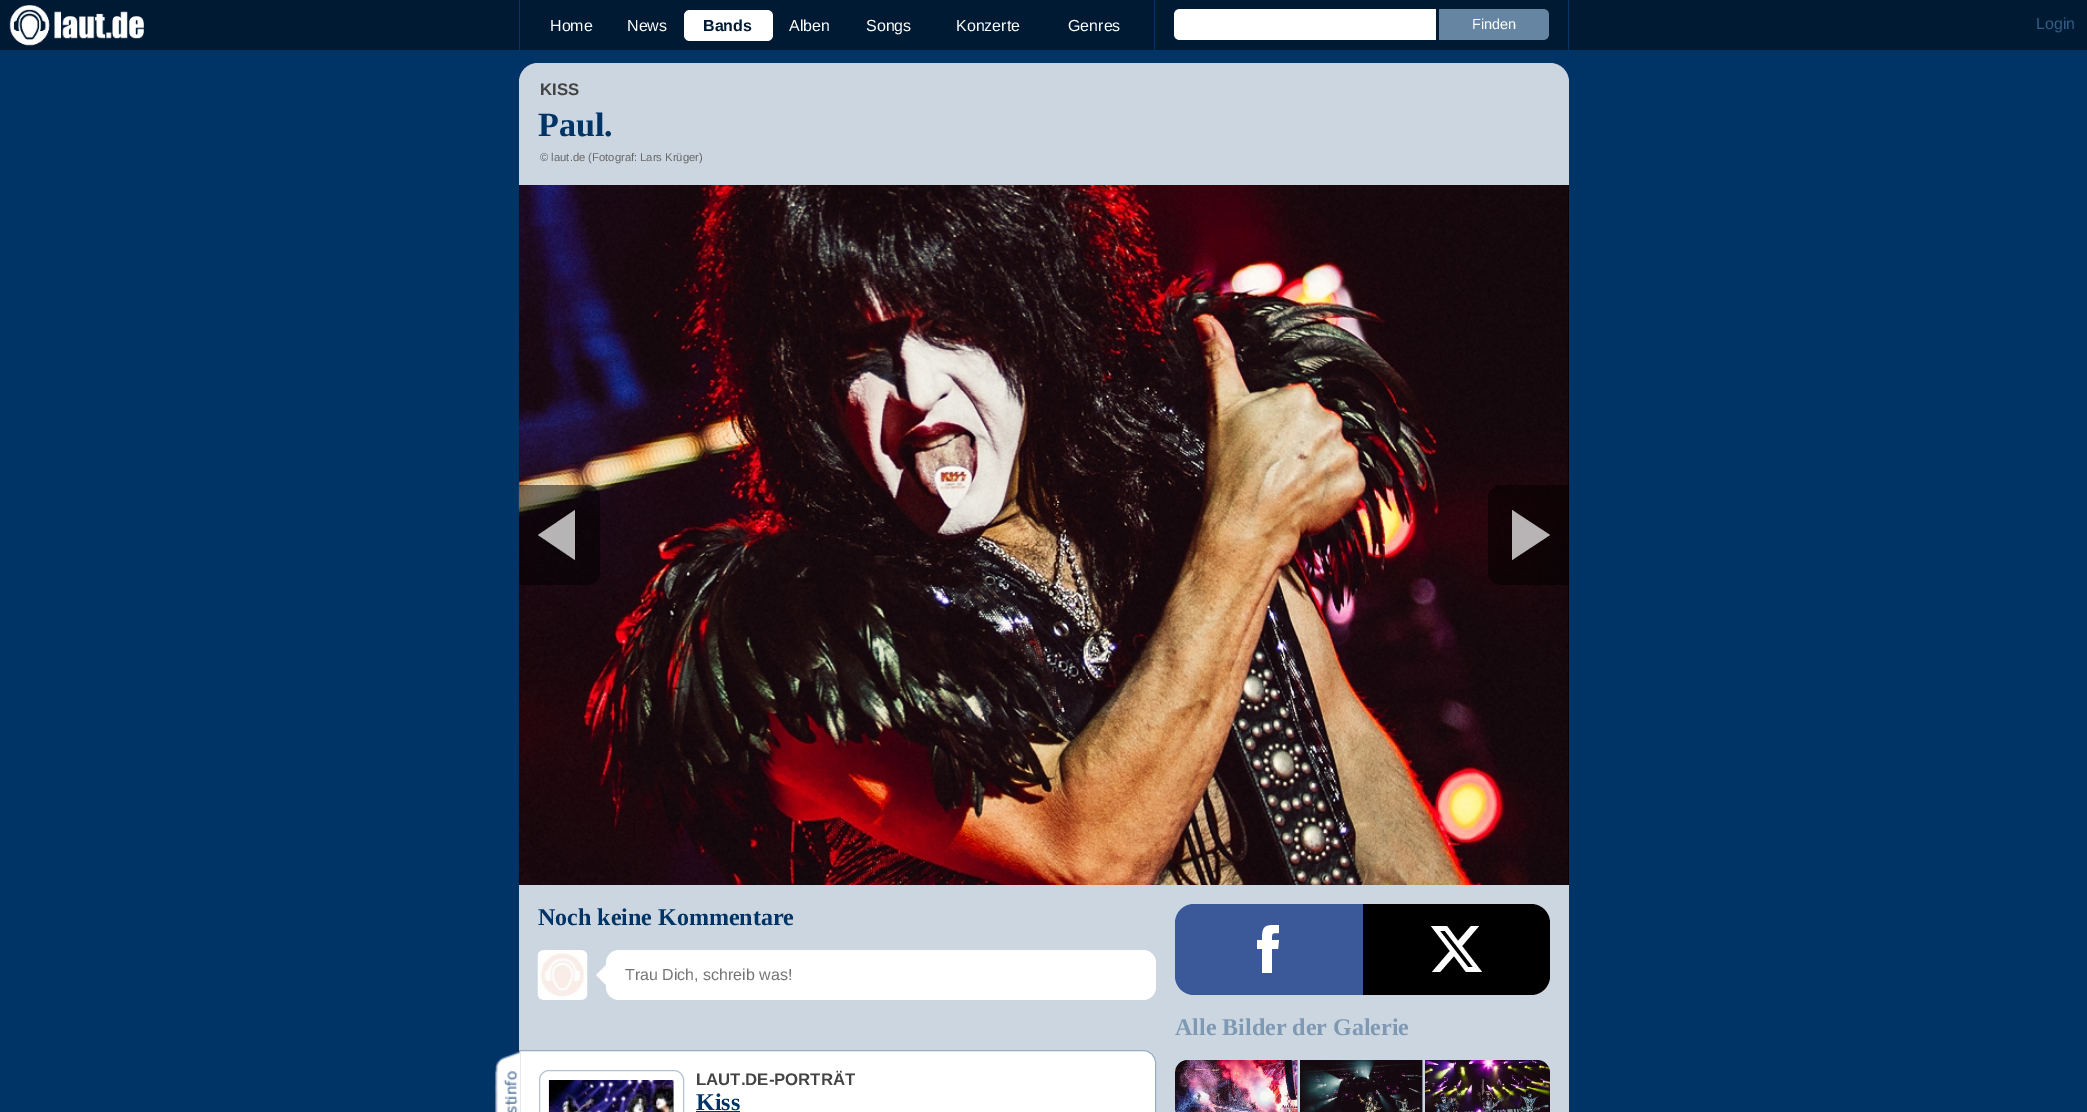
%!PS
<< /PageSize [2087 1112] /PageUsesTransparency true >> setpagedevice
/rgb { 3 { 255 div 3 1 roll } repeat setrgbcolor } def
/font { [ exch dup neg 0 0 3 -1 roll 0 0 ] selectfont } def
/alpha { dup .setfillconstantalpha .setstrokeconstantalpha } def
/roundrect { 5 dict begin { /r /h /w /y /x } { exch def } forall
  x r add y moveto x w add y 2 copy h add r arct x w add y h add x 1 index r arct
  x y h add x y r arct x y 2 copy exch w add exch r arct closepath end } def
/picture { 5 dict begin { /h /w /y /x /name } { exch def } forall
  gsave x y translate w h scale
  w h 8 [w 0 0 h 0 0] name (r) file false 3 colorimage grestore end } def
0 .pushpdf14devicefilter
0 1112 translate 1 -1 scale
4 setmiterlimit
0 51 102 rgb
0 0 2087 1112 rectfill
0 26 52 rgb
0 0 2087 50 rectfill
(img/1.rgb) 9 5 135 41 picture
0 51 102 rgb
519 0 1 50 rectfill
255 255 255 rgb
684 10 89 31 6 roundrect fill
0 51 102 rgb
1568 0 1 50 rectfill
1154 0 1 50 rectfill
255 255 255 rgb
1180 9 moveto 1436 9 lineto 1436 40 lineto 1180 40 lineto 1176.5 40 1174 37.5 1174 34 curveto 1174 15 lineto 1174 11.5 1176.5 9 1180 9 curveto closepath fill
102 133 163 rgb
1439 9 moveto 1543 9 lineto 1546.5 9 1549 11.5 1549 15 curveto 1549 34 lineto 1549 37.5 1546.5 40 1543 40 curveto 1439 40 lineto closepath fill
204 214 224 rgb
519 63 1050 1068 19 roundrect fill
0 0 0 rgb
1568 185 1 700 rectfill
(img/2.rgb) 518 185 1051 700 picture
0.5 alpha
519 485 moveto 587 485 lineto 594 485 600 491 600 498 curveto 600 572 lineto 600 579 594 585 587 585 curveto 519 585 lineto closepath fill
0.7 alpha
255 255 255 rgb
575 510 moveto 575 560 lineto 538 535 lineto closepath fill
0.5 alpha
0 0 0 rgb
1501 485 moveto 1569 485 lineto 1569 585 lineto 1501 585 lineto 1494 585 1488 579 1488 572 curveto 1488 498 lineto 1488 491 1494 485 1501 485 curveto closepath fill
0.7 alpha
255 255 255 rgb
1512 560 moveto 1512 510 lineto 1550 535 lineto closepath fill
1 alpha
(img/3.rgb) 537 950 51 50 picture
606 965 moveto 606 985 lineto 596 975 lineto closepath fill
606 950 550 50 13 roundrect fill
519.5 1050.5 moveto 1143 1050.5 lineto 1150 1050.5 1155.5 1056 1155.5 1063 curveto 1155.5 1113 lineto 1155.5 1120 1150 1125.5 1143 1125.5 curveto 519.5 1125.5 lineto closepath gsave fill grestore
153 173 194 rgb
stroke
(img/4.rgb) 495 1051 25 61 picture
179 194 209 rgb
539.5 1070.5 144 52 9.5 roundrect stroke
(img/5.rgb) 548 1080 126 32 picture
0 51 102 rgb
696 1111 44 1 rectfill
59 89 152 rgb
1194 904 moveto 1363 904 lineto 1363 995 lineto 1194 995 lineto 1183.5 995 1175 986.5 1175 976 curveto 1175 923 lineto 1175 912.5 1183.5 904 1194 904 curveto closepath fill
255 255 255 rgb
1272 973 moveto 1272 949 lineto 1278 949 lineto 1279 940 lineto 1272 940 lineto 1272 933 1271 933 1279 933 curveto 1279 925 lineto 1265 925 1262 925 1262 940 curveto 1257 940 lineto 1257 949 lineto 1262 949 lineto 1262 973 lineto closepath eofill
0 0 0 rgb
1363 904 moveto 1531 904 lineto 1541.5 904 1550 912.5 1550 923 curveto 1550 976 lineto 1550 986.5 1541.5 995 1531 995 curveto 1363 995 lineto closepath fill
255 255 255 rgb
1471 926 moveto 1479 926 lineto 1462 946 lineto 1482 972 lineto 1466 972 lineto 1454 956 lineto 1440 972 lineto 1432 972 lineto 1450 951 lineto 1431 926 lineto 1447 926 lineto 1458 941 lineto closepath 1468 967 moveto 1473 967 lineto 1445 931 lineto 1440 931 lineto closepath fill
153 173 194 rgb
1175 1060 375 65 13 roundrect fill
204 214 224 rgb
1298 1060 2 52 rectfill
(img/6.rgb) 1175 1060 123 52 picture
1423 1060 2 52 rectfill
(img/7.rgb) 1300 1060 123 52 picture
(img/8.rgb) 1425 1060 125 52 picture
/LiberationSans-Regular 16 font
255 255 255 rgb
550 31 moveto (Home) show
627 31 moveto (News) show
/LiberationSans-Bold 16 font
0 26 52 rgb
703 31 moveto (Bands) show
/LiberationSans-Regular 16 font
255 255 255 rgb
[
  [(Alben) 789 31]
  [(Songs) 866 31]
  [(Konzerte) 956 31]
  [(Genres) 1068 31]
] { aload pop moveto show } forall
/LiberationSans-Regular 14.5 font
1472 29 moveto (Finden) show
/LiberationSans-Regular 16 font
51 92 133 rgb
2036 29 moveto (Login) show
/LiberationSans-Bold 16.75 font
68 68 68 rgb
540 95 moveto (KISS) show
/LiberationSerif-Bold 34 font
0 51 102 rgb
538 136 moveto (Paul.) show
/LiberationSans-Regular 11.25 font
102 102 102 rgb
540 161 moveto (© laut.de \(Fotograf: Lars Krüger\)) show
/LiberationSerif-Bold 24 font
0 51 102 rgb
538 925 moveto (Noch keine Kommentare) show
/LiberationSans-Regular 16 font
117 117 117 rgb
625 980 moveto (Trau Dich, schreib was!) show
/LiberationSans-Bold 16.75 font
68 68 68 rgb
696 1085 moveto (LAUT.DE-PORTRÄT) show
/LiberationSerif-Bold 24 font
0 51 102 rgb
696 1110 moveto (Kiss) show
128 153 179 rgb
1175 1035 moveto (Alle Bilder der Galerie) show
.poppdf14devicefilter showpage
